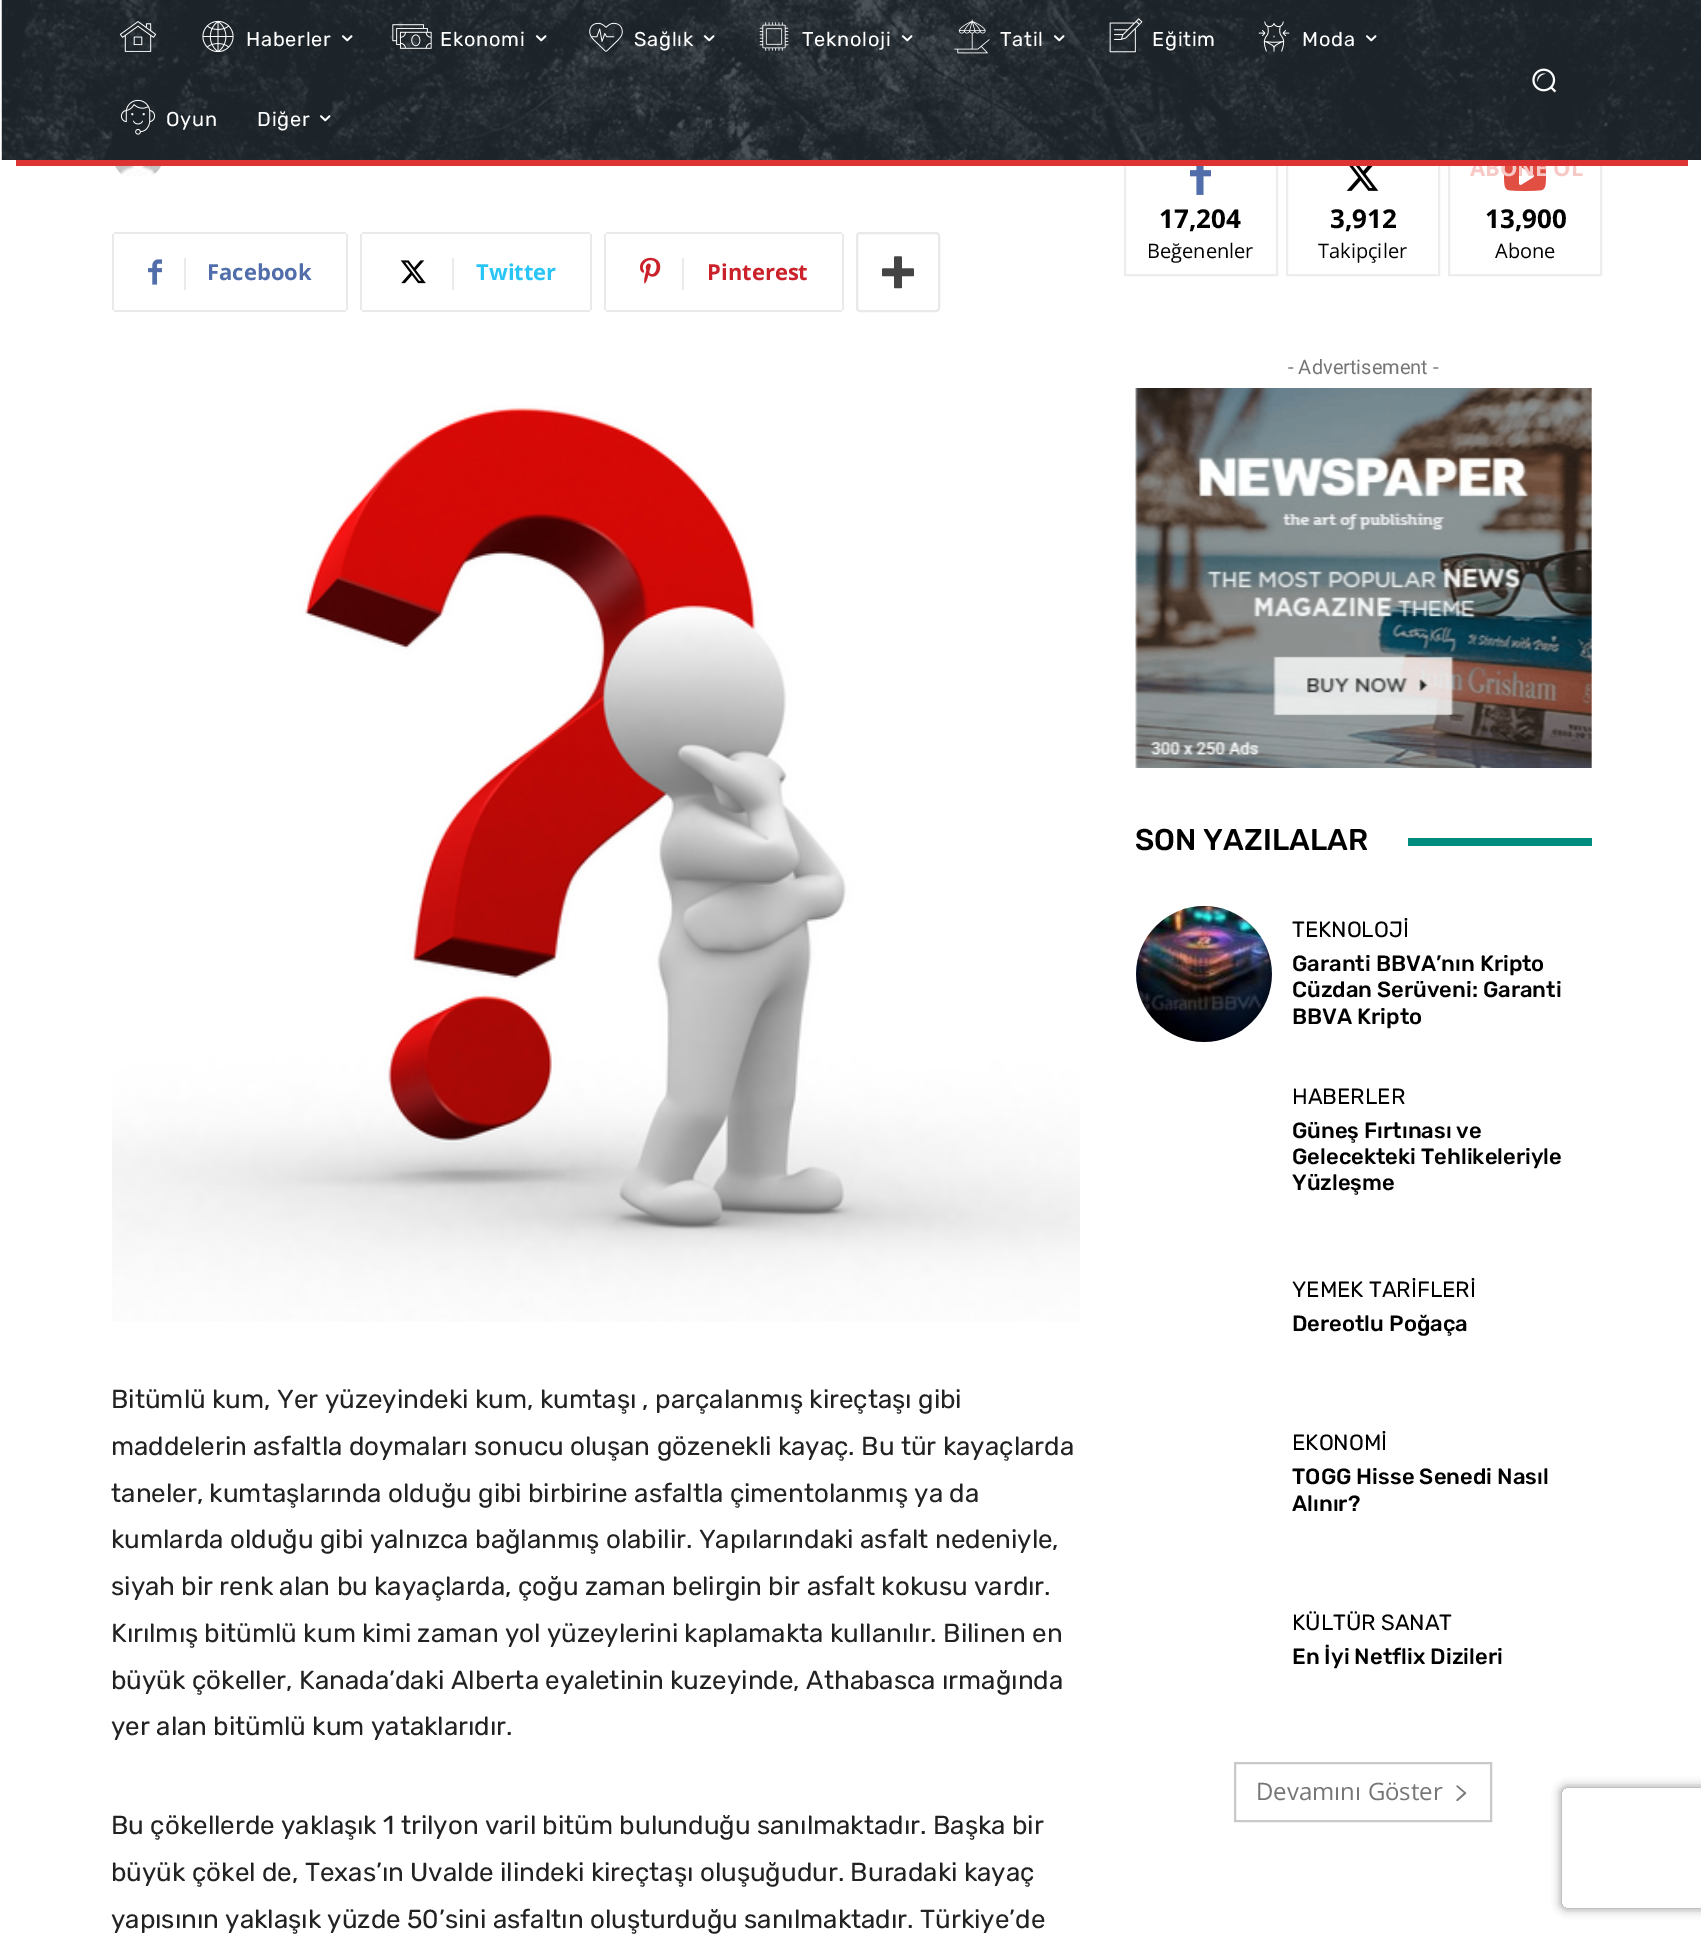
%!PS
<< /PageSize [1701 1936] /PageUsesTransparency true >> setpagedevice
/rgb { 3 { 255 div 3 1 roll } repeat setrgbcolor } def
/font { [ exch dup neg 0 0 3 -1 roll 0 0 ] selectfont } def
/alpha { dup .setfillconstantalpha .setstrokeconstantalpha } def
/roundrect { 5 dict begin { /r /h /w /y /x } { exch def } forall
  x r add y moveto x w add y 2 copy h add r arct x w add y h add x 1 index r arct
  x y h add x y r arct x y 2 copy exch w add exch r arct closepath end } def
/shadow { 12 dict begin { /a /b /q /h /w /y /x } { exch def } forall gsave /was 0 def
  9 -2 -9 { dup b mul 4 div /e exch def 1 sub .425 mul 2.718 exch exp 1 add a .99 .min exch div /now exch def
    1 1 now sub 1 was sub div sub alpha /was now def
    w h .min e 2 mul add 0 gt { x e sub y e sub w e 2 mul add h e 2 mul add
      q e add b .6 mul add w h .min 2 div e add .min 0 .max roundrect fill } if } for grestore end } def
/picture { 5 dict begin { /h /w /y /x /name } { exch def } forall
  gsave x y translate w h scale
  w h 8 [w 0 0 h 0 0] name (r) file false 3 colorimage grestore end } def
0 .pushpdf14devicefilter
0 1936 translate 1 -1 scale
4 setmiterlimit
255 255 255 rgb
0 0 1701 1936 rectfill
237 237 237 rgb
2 setlinewidth
1125 137 152 138 rectstroke
1287 137 152 138 rectstroke
1449 137 152 138 rectstroke
35 45 53 rgb
2 0 1699 160 rectfill
(img/1.rgb) 1 0 1700 160 picture
(img/2.rgb) 119 21 38 31 picture
(img/3.rgb) 202 20 32 33 picture
(img/4.rgb) 342 35 11 7 picture
(img/5.rgb) 392 24 40 25 picture
(img/6.rgb) 536 35 11 7 picture
(img/7.rgb) 589 22 34 30 picture
(img/8.rgb) 704 35 11 7 picture
(img/9.rgb) 759 22 30 29 picture
(img/10.rgb) 902 35 11 7 picture
(img/11.rgb) 954 19 36 35 picture
(img/12.rgb) 1054 35 11 7 picture
(img/13.rgb) 1109 18 34 35 picture
(img/14.rgb) 1258 21 32 31 picture
(img/15.rgb) 1366 35 11 7 picture
(img/16.rgb) 120 99 36 36 picture
(img/17.rgb) 320 115 11 7 picture
(img/18.rgb) 1532 68 25 25 picture
(img/19.rgb) 115 166 46 10 picture
233 233 233 rgb
112 234 2 76 rectfill
(img/20.rgb) 148 259 14 26 picture
[
  [114 232 232 2 233 233 233]
  [346 234 2 76 233 233 233]
  [114 310 232 2 233 233 233]
  [184 258 2 32 235 235 235]
  [360 234 2 76 233 233 233]
] { aload pop rgb rectfill } forall
(img/21.rgb) 400 260 26 24 picture
[
  [362 232 228 2 233 233 233]
  [590 234 2 76 233 233 233]
  [362 310 228 2 233 233 233]
  [452 258 2 32 235 235 235]
  [604 234 2 76 233 233 233]
] { aload pop rgb rectfill } forall
(img/22.rgb) 640 257 21 27 picture
[
  [606 232 236 2 233 233 233]
  [842 234 2 76 233 233 233]
  [606 310 236 2 233 233 233]
  [682 258 2 32 235 235 235]
] { aload pop rgb rectfill } forall
233 233 233 rgb
857 233 82 78 3 roundrect stroke
(img/23.rgb) 882 256 32 33 picture
(img/24.rgb) 112 405 968 917 picture
(img/25.rgb) 1190 166 21 29 picture
(img/26.rgb) 1346 166 33 25 picture
(img/27.rgb) 1504 166 42 25 picture
(img/28.rgb) 1135 388 457 380 picture
0 141 127 rgb
1408 838 184 8 rectfill
(img/29.rgb) 1136 906 136 136 picture
201 201 201 rgb
1235 1763 256 58 rectstroke
(img/30.rgb) 1456 1785 11 17 picture
gsave
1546 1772 moveto 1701 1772 lineto 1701 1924 lineto 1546 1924 lineto closepath 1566 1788 moveto 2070 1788 lineto 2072 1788 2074 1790 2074 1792 curveto 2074 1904 lineto 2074 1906 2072 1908 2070 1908 curveto 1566 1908 lineto 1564 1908 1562 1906 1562 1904 curveto 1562 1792 lineto 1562 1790 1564 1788 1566 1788 curveto closepath eoclip newpath
128 128 128 rgb
1562 1788 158 120 4 5 1 shadow
grestore
/Rubik-Regular 20 font
255 255 255 rgb
246 46 moveto 0.75 0 (Haberler) ashow
440 46 moveto 0.75 0 (Ekonomi) ashow
634 46 moveto 0.75 0 (Sağlık) ashow
802 46 moveto 0.75 0 (Teknoloji) ashow
1000 46 moveto 0.75 0 (Tatil) ashow
1152 46 moveto 0.75 0 (Eğitim) ashow
1302 46 moveto 0.75 0 (Moda) ashow
166 126 moveto 0.75 0 (Oyun) ashow
257 126 moveto 0.75 0 (Diğer) ashow
/OpenSans-Bold 22 font
81 110 171 rgb
207 280 moveto (Facebook) show
41 197 246 rgb
476 280 moveto (Twitter) show
202 33 42 rgb
707 280 moveto (Pinterest) show
/Rubik-Regular 26 font
34 34 34 rgb
[
  [(Bitümlü kum, Yer yüzeyindeki kum, kumtaşı , parçalanmış kireçtaşı gibi) 111 1408]
  [(maddelerin asfaltla doymaları sonucu oluşan gözenekli kayaç. Bu tür kayaçlarda) 111 1455]
  [(taneler, kumtaşlarında olduğu gibi birbirine asfaltla çimentolanmış ya da) 111 1502]
  [(kumlarda olduğu gibi yalnızca bağlanmış olabilir. Yapılarındaki asfalt nedeniyle,) 111 1548]
  [(siyah bir renk alan bu kayaçlarda, çoğu zaman belirgin bir asfalt kokusu vardır.) 111 1595]
  [(Kırılmış bitümlü kum kimi zaman yol yüzeylerini kaplamakta kullanılır. Bilinen en) 111 1642]
  [(büyük çökeller, Kanada’daki Alberta eyaletinin kuzeyinde, Athabasca ırmağında) 111 1689]
  [(yer alan bitümlü kum yataklarıdır.) 111 1735]
  [(Bu çökellerde yaklaşık 1 trilyon varil bitüm bulunduğu sanılmaktadır. Başka bir) 111 1834]
  [(büyük çökel de, Texas’ın Uvalde ilindeki kireçtaşı oluşuğudur. Buradaki kayaç) 111 1881]
  [(yapısının yaklaşık yüzde 50’sini asfaltın oluşturduğu sanılmaktadır. Türkiye’de) 111 1928]
] { aload pop moveto show } forall
/OpenSans-Bold 26 font
0 0 0 rgb
1159 228 moveto (17,204) show
/OpenSans-Regular 20 font
1147 258 moveto (Beğenenler) show
/OpenSans-Bold 26 font
1330 228 moveto (3,912) show
/OpenSans-Regular 20 font
1318 258 moveto (Takipçiler) show
/OpenSans-Bold 22 font
246 201 198 rgb
1470 176 moveto (ABONE OL) show
221 51 51 rgb
16 160 1672 6 rectfill
/OpenSans-Bold 26 font
0 0 0 rgb
1485 228 moveto (13,900) show
/OpenSans-Regular 20 font
1495 258 moveto (Abone) show
/Roboto-Regular 20 font
118 118 118 rgb
1288 374 moveto (- Advertisement -) show
/Rubik-Medium 30 font
0 0 0 rgb
1135 850 moveto (SON YAZILALAR) show
/Rubik-Regular 22 font
1292 937 moveto (TEKNOLOJİ) show
/Rubik-Medium 22 font
[
  [(Garanti BBVA’nın Kripto) 1292 971]
  [(Cüzdan Serüveni: Garanti) 1292 997]
  [(BBVA Kripto) 1292 1024]
] { aload pop moveto show } forall
/Rubik-Regular 22 font
1292 1104 moveto (HABERLER) show
/Rubik-Medium 22 font
[
  [(Güneş Fırtınası ve) 1292 1138]
  [(Gelecekteki Tehlikeleriyle) 1292 1164]
  [(Yüzleşme) 1292 1190]
] { aload pop moveto show } forall
/Rubik-Regular 22 font
1292 1297 moveto (YEMEK TARİFLERİ) show
/Rubik-Medium 22 font
1292 1331 moveto (Dereotlu Poğaça) show
/Rubik-Regular 22 font
1292 1450 moveto (EKONOMİ) show
/Rubik-Medium 22 font
1292 1484 moveto (TOGG Hisse Senedi Nasıl) show
1292 1511 moveto (Alınır?) show
/Rubik-Regular 22 font
1292 1630 moveto (KÜLTÜR SANAT) show
/Rubik-Medium 22 font
1292 1664 moveto (En İyi Netflix Dizileri) show
/OpenSans-Regular 24 font
118 118 118 rgb
1256 1800 moveto (Devamını Göster) show
.poppdf14devicefilter showpage
